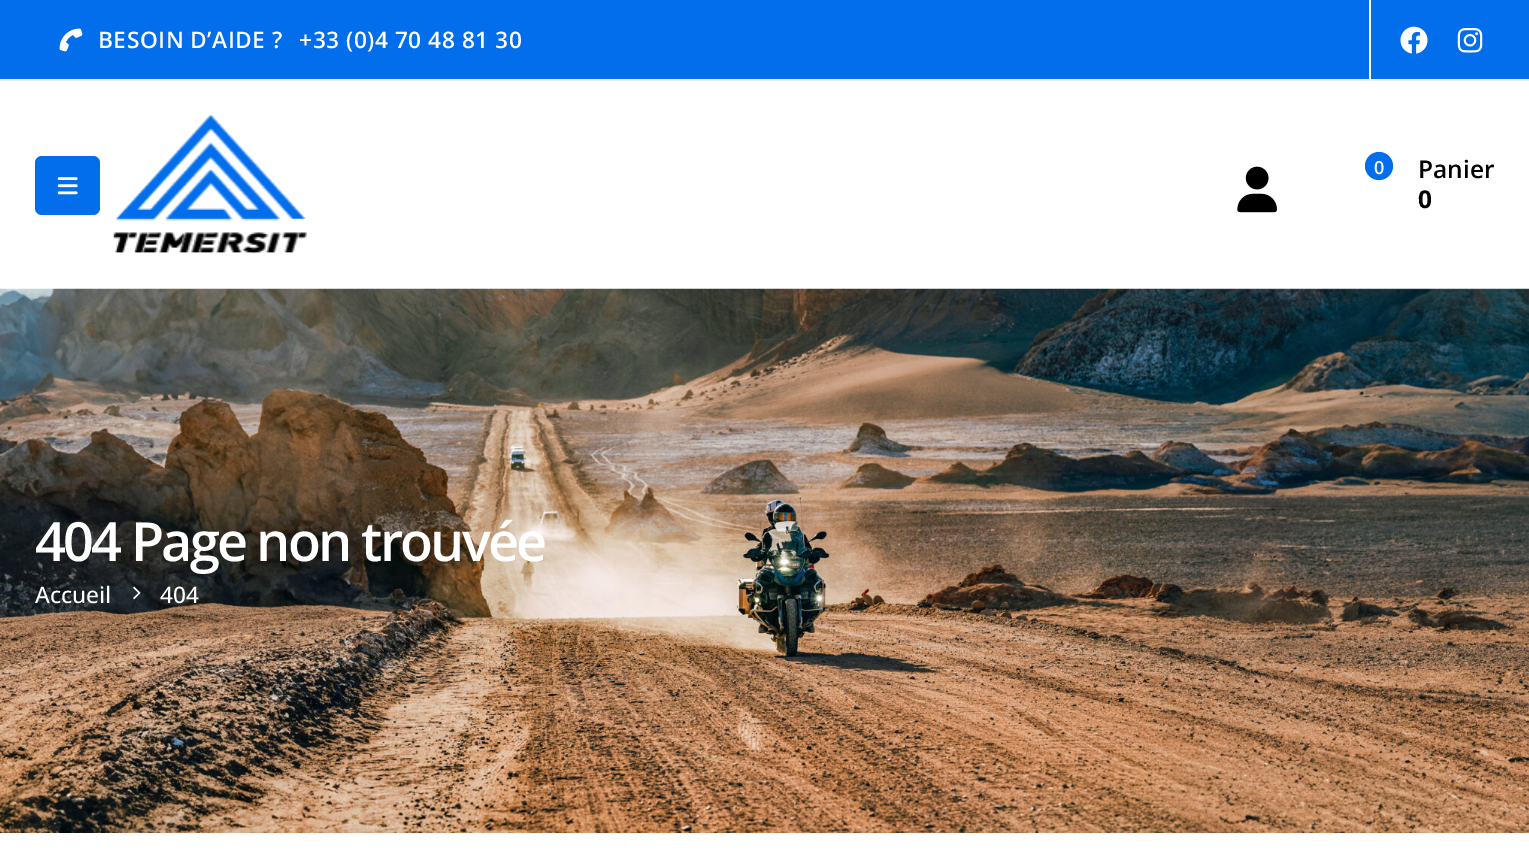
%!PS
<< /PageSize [1529 854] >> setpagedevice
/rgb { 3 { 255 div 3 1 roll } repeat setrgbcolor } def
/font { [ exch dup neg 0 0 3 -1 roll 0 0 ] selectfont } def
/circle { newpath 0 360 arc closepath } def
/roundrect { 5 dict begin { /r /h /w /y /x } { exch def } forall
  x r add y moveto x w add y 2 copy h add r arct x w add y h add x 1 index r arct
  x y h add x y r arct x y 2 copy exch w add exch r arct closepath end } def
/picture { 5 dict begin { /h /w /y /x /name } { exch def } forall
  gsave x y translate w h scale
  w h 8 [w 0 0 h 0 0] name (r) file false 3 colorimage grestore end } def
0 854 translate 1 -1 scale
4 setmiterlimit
255 255 255 rgb
0 0 1529 854 rectfill
2 110 236 rgb
0 0 1529 79 rectfill
237 237 237 rgb
0 79 1529 2 rectfill
(img/1.rgb) 59 28 24 24 picture
255 255 255 rgb
1369 0 2 79 rectfill
(img/2.rgb) 1400 26 28 28 picture
(img/3.rgb) 1457 28 26 25 picture
2 110 236 rgb
35 156 65 59 7 roundrect fill
(img/4.rgb) 57 177 21 18 picture
(img/5.rgb) 113 115 194 139 picture
(img/6.rgb) 1237 166 41 47 picture
1379 166 14 circle fill
(img/7.rgb) 0 288 1529 545 picture
(img/8.rgb) 133 586 8 14 picture
/OpenSans-SemiBold 22.75 font
255 255 255 rgb
98 48 moveto 0.5 0 (BESOIN D’AIDE ?) ashow
299 48 moveto 0.5 0 (+33 \(0\)4 70 48 81 30) ashow
/OpenSans-SemiBold 18 font
1374 174 moveto (0) show
/OpenSans-SemiBold 24.5 font
0 0 0 rgb
1418 178 moveto (Panier) show
/OpenSans-Bold 24.5 font
1418 208 moveto (0) show
/OpenSans-SemiBold 54 font
255 255 255 rgb
35 561 moveto -2.75 0 (404 Page non trouvée) ashow
/OpenSans-Medium 22.75 font
35 603 moveto (Accueil) show
160 603 moveto (404) show
showpage
